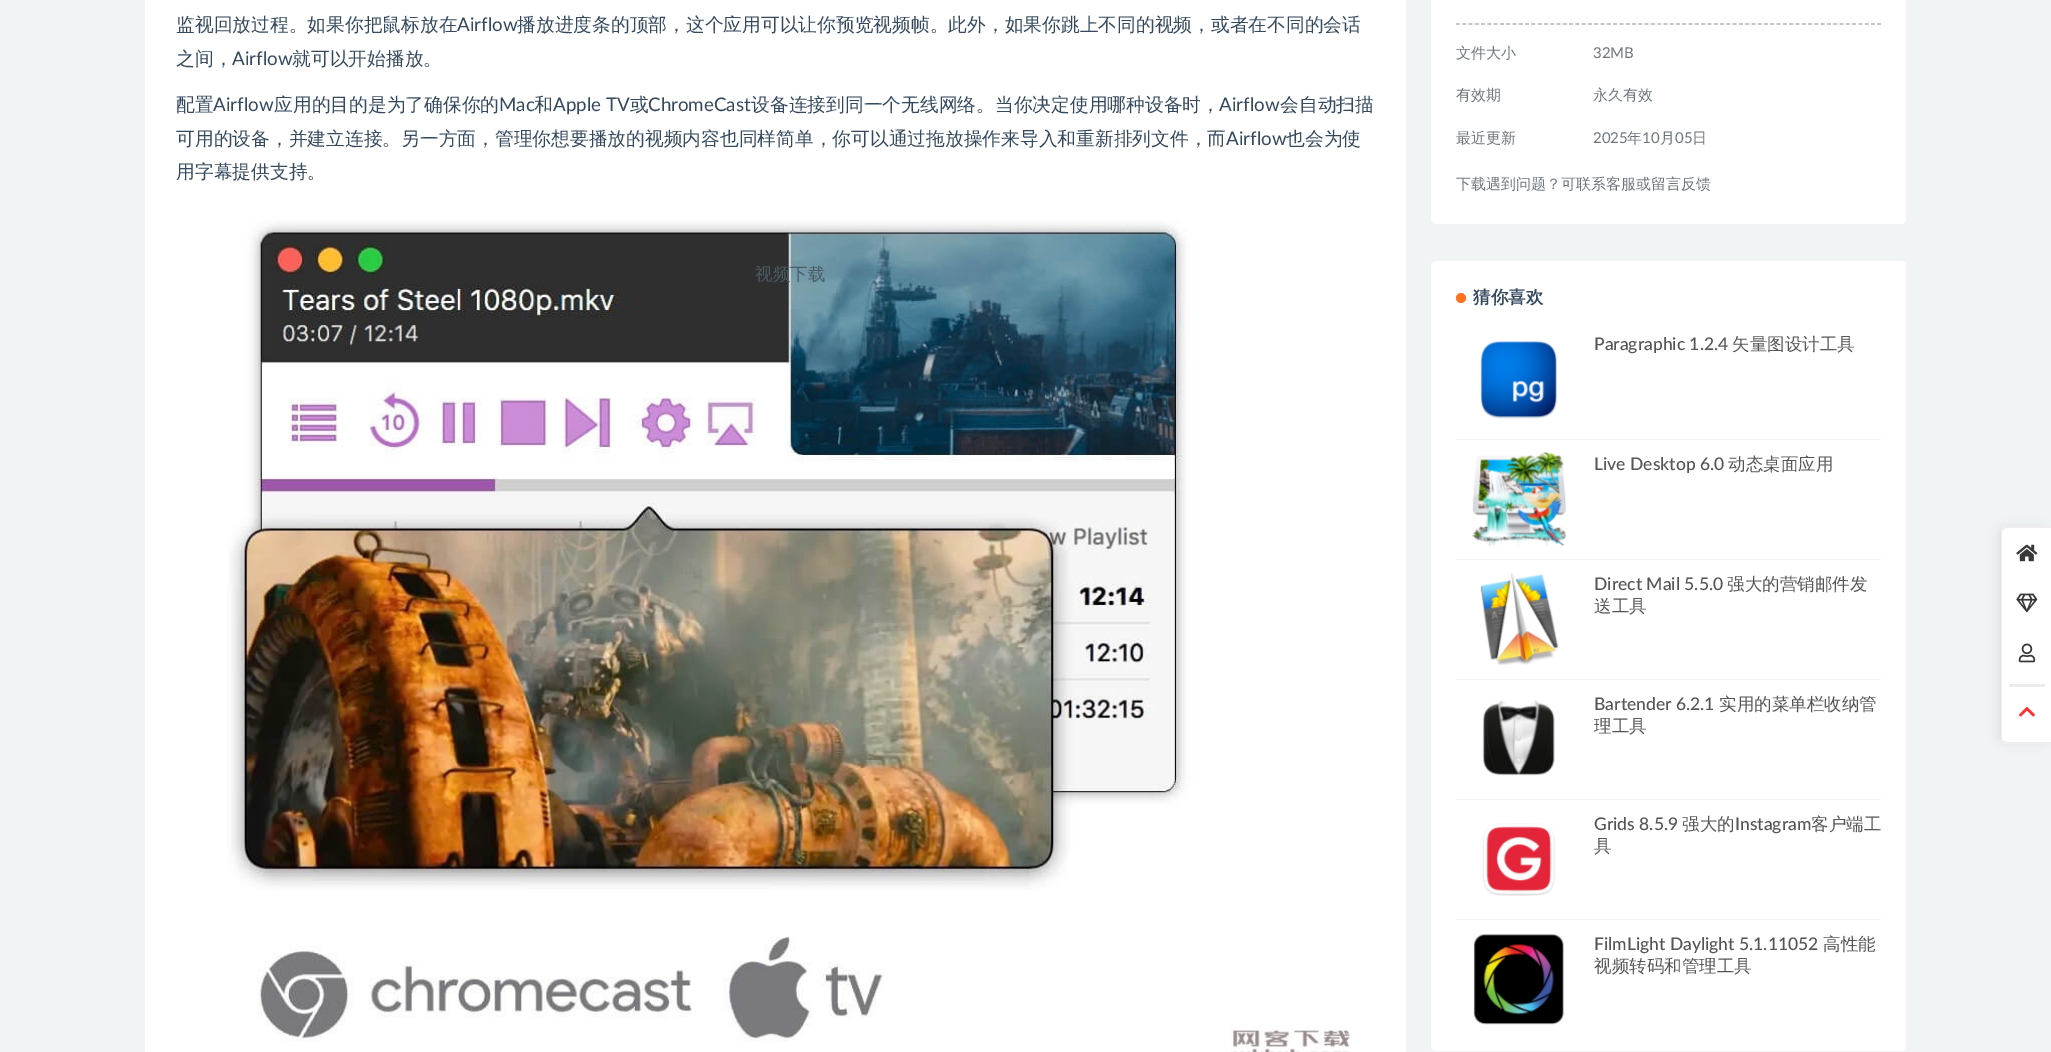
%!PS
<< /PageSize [2051 1052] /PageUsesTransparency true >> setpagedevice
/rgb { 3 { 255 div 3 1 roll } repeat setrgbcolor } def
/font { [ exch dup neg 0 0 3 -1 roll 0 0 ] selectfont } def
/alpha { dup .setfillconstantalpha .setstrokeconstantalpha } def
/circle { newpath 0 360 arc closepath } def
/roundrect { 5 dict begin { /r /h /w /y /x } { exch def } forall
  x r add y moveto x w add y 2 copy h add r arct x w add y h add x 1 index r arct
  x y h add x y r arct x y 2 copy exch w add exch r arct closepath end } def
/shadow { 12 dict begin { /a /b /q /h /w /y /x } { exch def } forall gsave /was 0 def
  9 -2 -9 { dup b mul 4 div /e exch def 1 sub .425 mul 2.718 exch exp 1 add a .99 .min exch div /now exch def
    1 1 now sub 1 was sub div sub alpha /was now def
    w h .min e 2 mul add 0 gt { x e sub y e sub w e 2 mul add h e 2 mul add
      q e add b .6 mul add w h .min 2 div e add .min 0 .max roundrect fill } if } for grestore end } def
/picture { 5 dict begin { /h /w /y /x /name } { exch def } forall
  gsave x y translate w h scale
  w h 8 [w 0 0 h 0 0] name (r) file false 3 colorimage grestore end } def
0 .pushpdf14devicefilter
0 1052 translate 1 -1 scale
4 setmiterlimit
240 244 245 rgb
0 0 2051 1052 rectfill
255 255 255 rgb
145 0 1261 1052 rectfill
(img/1.rgb) 227 220 1123 832 picture
1431 -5 475 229 5 roundrect fill
177 177 177 rgb
1.2 setlinewidth
[3.75 2.54] 0 setdash
1456 24 moveto 1881 24 lineto stroke
255 255 255 rgb
1431 261 475 790 5 roundrect fill
253 114 31 rgb
1461 298 5 circle fill
240 244 245 rgb
1456 439 425 1 rectfill
(img/2.rgb) 1480 341 77 78 picture
1456 559 425 1 rectfill
(img/3.rgb) 1472 452 95 95 picture
1456 679 425 1 rectfill
(img/4.rgb) 1480 572 79 93 picture
1456 799 425 1 rectfill
(img/5.rgb) 1482 700 73 76 picture
1456 919 425 1 rectfill
(img/6.rgb) 1482 823 74 73 picture
(img/7.rgb) 1473 934 91 91 picture
0 0 0 rgb
2000 529 45 212 4 6 0.1 shadow
255 255 255 rgb
2007 526 moveto 2051 526 lineto 2051 744 lineto 2007 744 lineto 2003.5 744 2001 741.5 2001 738 curveto 2001 532 lineto 2001 528.5 2003.5 526 2007 526 curveto closepath fill
238 238 238 rgb
2008 526 moveto 2051 526 lineto 2051 744 lineto 2008 744 lineto 2004 744 2001 741 2001 738 curveto 2001 532 lineto 2001 529 2004 526 2008 526 curveto closepath 2008 528 moveto 2051 528 lineto 2051 742 lineto 2008 742 lineto 2005 742 2002 740 2002 738 curveto 2002 532 lineto 2002 530 2005 528 2008 528 curveto closepath eofill
(img/8.rgb) 2016 544 22 18 picture
(img/9.rgb) 2016 593 22 20 picture
(img/10.rgb) 2018 643 18 20 picture
235 235 235 rgb
2009 684 36 3 rectfill
(img/11.rgb) 2019 706 16 11 picture
/WenQuanYiZenHei-Medium 18.75 font
52 73 94 rgb
176 31 moveto (监视回放过程。如果你把鼠标放在) show
/Lato-Regular 18.75 font
457 31 moveto (Airflow) show
/WenQuanYiZenHei-Medium 18.75 font
517 31 moveto (播放进度条的顶部，这个应用可以让你预览视频帧。此外，如果你跳上不同的视频，或者在不同的会话) show
176 65 moveto (之间，) show
/Lato-Regular 18.75 font
232 65 moveto (Airflow) show
/WenQuanYiZenHei-Medium 18.75 font
292 65 moveto (就可以开始播放。) show
176 111 moveto (配置) show
/Lato-Regular 18.75 font
213 111 moveto (Airflow) show
/WenQuanYiZenHei-Medium 18.75 font
274 111 moveto (应用的目的是为了确保你的) show
/Lato-Regular 18.75 font
499 111 moveto (Mac) show
/WenQuanYiZenHei-Medium 18.75 font
534 111 moveto (和) show
/Lato-Regular 18.75 font
553 111 moveto (Apple TV) show
/WenQuanYiZenHei-Medium 18.75 font
630 111 moveto (或) show
/Lato-Regular 18.75 font
648 111 moveto (ChromeCast) show
/WenQuanYiZenHei-Medium 18.75 font
751 111 moveto (设备连接到同一个无线网络。当你决定使用哪种设备时，) show
/Lato-Regular 18.75 font
1219 111 moveto (Airflow) show
/WenQuanYiZenHei-Medium 18.75 font
1280 111 moveto (会自动扫描) show
176 145 moveto (可用的设备，并建立连接。另一方面，管理你想要播放的视频内容也同样简单，你可以通过拖放操作来导入和重新排列文件，而) show
/Lato-Regular 18.75 font
1226 145 moveto (Airflow) show
/WenQuanYiZenHei-Medium 18.75 font
1286 145 moveto (也会为使) show
176 178 moveto (用字幕提供支持。) show
/WenQuanYiZenHei-Medium 15 font
108 117 125 rgb
1456 58 moveto (文件大小) show
/Lato-Regular 15 font
1593 58 moveto (32MB) show
/WenQuanYiZenHei-Medium 15 font
[
  [(有效期) 1456 100]
  [(永久有效) 1593 100]
  [(最近更新) 1456 143]
] { aload pop moveto show } forall
/Lato-Regular 15 font
1593 143 moveto (2025) show
/WenQuanYiZenHei-Medium 15 font
1627 143 moveto (年) show
/Lato-Regular 15 font
1642 143 moveto (10) show
/WenQuanYiZenHei-Medium 15 font
1660 143 moveto (月) show
/Lato-Regular 15 font
1675 143 moveto (05) show
/WenQuanYiZenHei-Medium 15 font
1692 143 moveto (日) show
1456 189 moveto (下载遇到问题？可联系客服或留言反馈) show
/WenQuanYiZenHei-Bold 17.5 font
52 73 94 rgb
1473 303 moveto (猜你喜欢) show
/Lato-Medium 17.5 font
85 85 85 rgb
1594 350 moveto (Paragraphic 1.2.4) show
/WenQuanYiZenHei-Medium 17.5 font
1732 350 moveto (矢量图设计工具) show
/Lato-Medium 17.5 font
1594 470 moveto (Live Desktop 6.0) show
/WenQuanYiZenHei-Medium 17.5 font
1728 470 moveto (动态桌面应用) show
/Lato-Medium 17.5 font
1594 590 moveto (Direct Mail 5.5.0) show
/WenQuanYiZenHei-Medium 17.5 font
1727 590 moveto (强大的营销邮件发) show
1594 612 moveto (送工具) show
/Lato-Medium 17.5 font
1594 710 moveto (Bartender 6.2.1) show
/WenQuanYiZenHei-Medium 17.5 font
1719 710 moveto (实用的菜单栏收纳管) show
1594 732 moveto (理工具) show
/Lato-Medium 17.5 font
1594 830 moveto (Grids 8.5.9) show
/WenQuanYiZenHei-Medium 17.5 font
1682 830 moveto (强大的) show
/Lato-Medium 17.5 font
1735 830 moveto (Instagram) show
/WenQuanYiZenHei-Medium 17.5 font
1811 830 moveto (客户端工) show
1594 852 moveto (具) show
/Lato-Medium 17.5 font
1594 950 moveto (FilmLight Daylight 5.1.11052) show
/WenQuanYiZenHei-Medium 17.5 font
1823 950 moveto (高性能) show
1594 972 moveto (视频转码和管理工具) show
75 92 99 rgb
755 280 moveto (视频下载) show
.poppdf14devicefilter showpage
